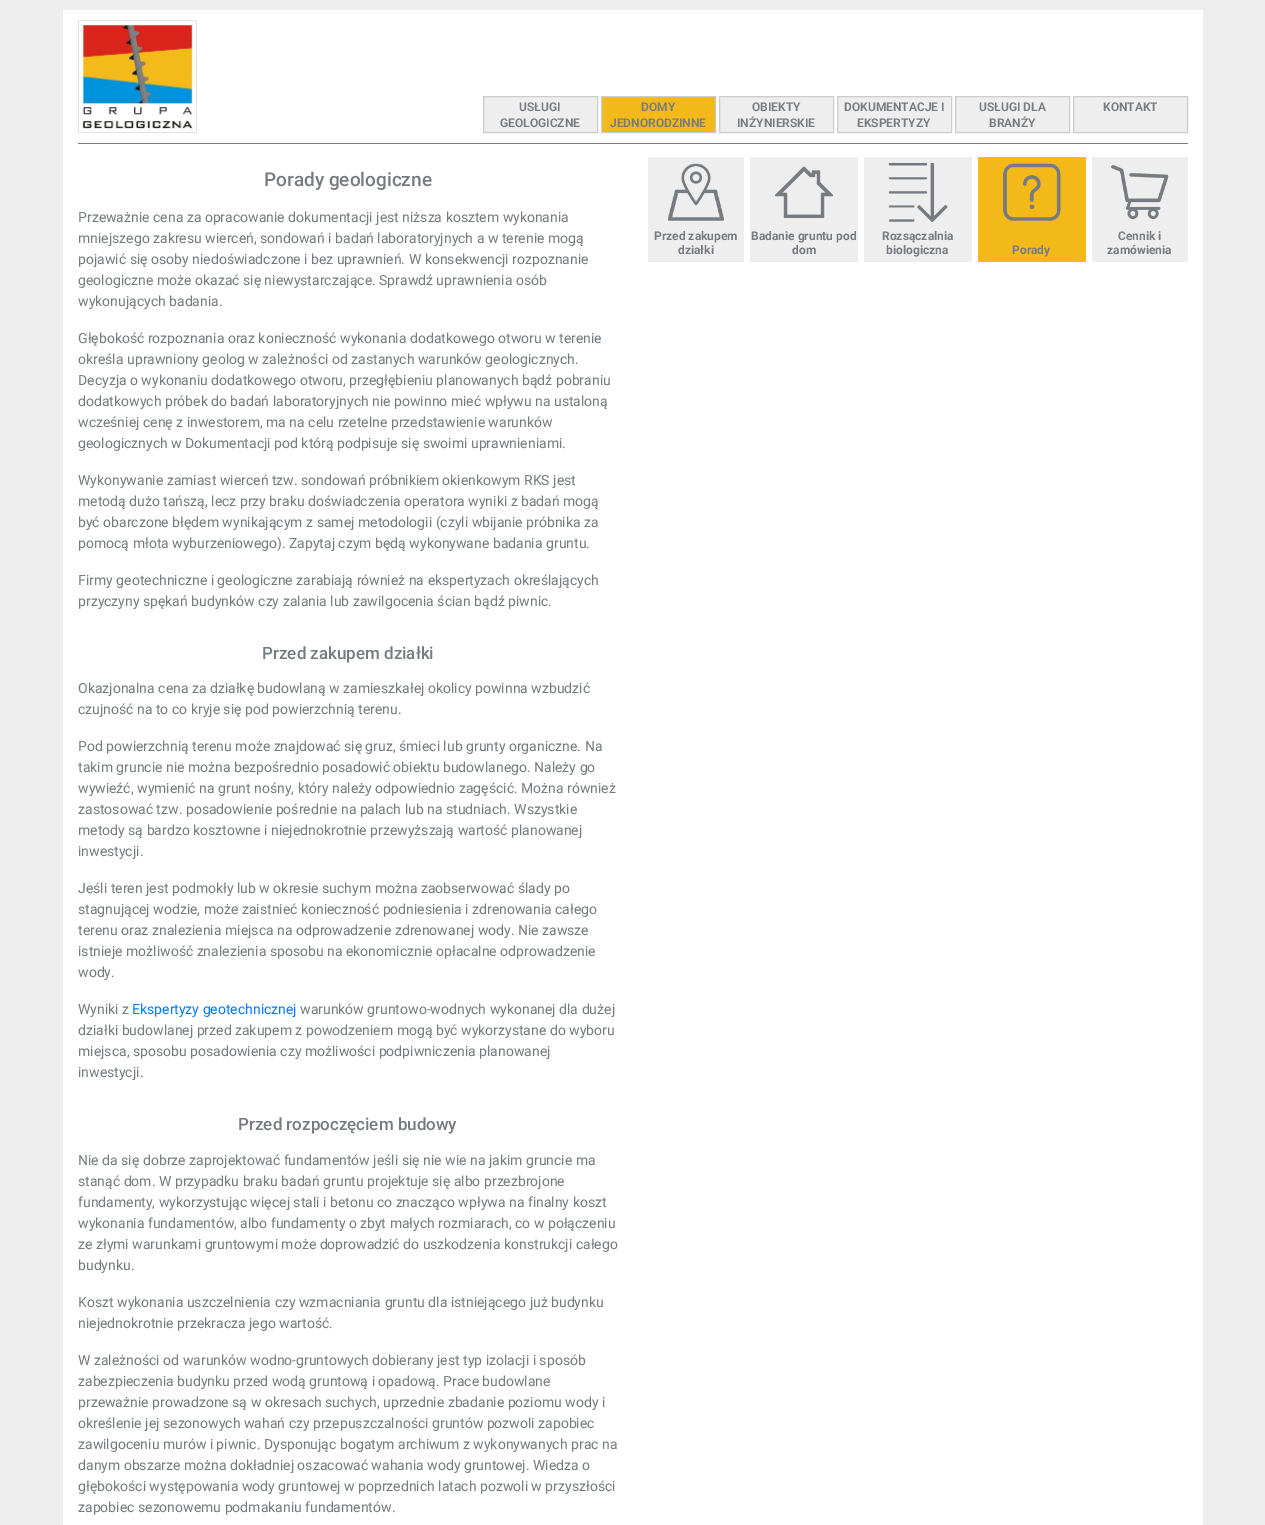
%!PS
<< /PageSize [1265 1525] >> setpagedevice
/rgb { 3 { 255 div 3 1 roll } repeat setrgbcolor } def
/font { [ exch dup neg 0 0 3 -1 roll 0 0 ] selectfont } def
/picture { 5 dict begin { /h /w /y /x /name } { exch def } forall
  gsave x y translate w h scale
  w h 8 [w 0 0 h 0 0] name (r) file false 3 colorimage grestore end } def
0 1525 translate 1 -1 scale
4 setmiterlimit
238 238 238 rgb
0 0 1265 1525 rectfill
255 255 255 rgb
63 10 1140 1515 rectfill
117 123 128 rgb
78 143 1110 1 rectfill
(img/1.rgb) 78 20 119 113 picture
238 238 238 rgb
483.5 96.5 moveto 597.5 96.5 lineto 597.5 132.5 lineto 483.5 132.5 lineto closepath gsave fill grestore
204 204 204 rgb
stroke
243 185 25 rgb
601.5 96.5 moveto 715.5 96.5 lineto 715.5 132.5 lineto 601.5 132.5 lineto closepath gsave fill grestore
204 204 204 rgb
stroke
238 238 238 rgb
719.5 96.5 moveto 833.5 96.5 lineto 833.5 132.5 lineto 719.5 132.5 lineto closepath gsave fill grestore
204 204 204 rgb
stroke
238 238 238 rgb
837.5 96.5 moveto 951.5 96.5 lineto 951.5 132.5 lineto 837.5 132.5 lineto closepath gsave fill grestore
204 204 204 rgb
stroke
238 238 238 rgb
955.5 96.5 moveto 1069.5 96.5 lineto 1069.5 132.5 lineto 955.5 132.5 lineto closepath gsave fill grestore
204 204 204 rgb
stroke
238 238 238 rgb
1073.5 96.5 moveto 1187.5 96.5 lineto 1187.5 132.5 lineto 1073.5 132.5 lineto closepath gsave fill grestore
204 204 204 rgb
stroke
238 238 238 rgb
648 157 96 105 rectfill
(img/2.rgb) 668 163 56 58 picture
750 157 108 105 rectfill
(img/3.rgb) 774 166 60 53 picture
864 157 108 105 rectfill
(img/4.rgb) 888 162 60 61 picture
243 185 25 rgb
978 157 108 105 rectfill
(img/5.rgb) 1003 163 58 58 picture
238 238 238 rgb
1092 157 96 105 rectfill
(img/6.rgb) 1111 165 58 55 picture
/Roboto-SemiBold 12 font
117 123 128 rgb
[
  [(USŁUGI) 519 111]
  [(GEOLOGICZNE) 500 127]
  [(DOMY) 641 111]
  [(JEDNORODZINNE) 610 127]
  [(OBIEKTY) 752 111]
  [(INŻYNIERSKIE) 737 127]
  [(DOKUMENTACJE I) 844 111]
  [(EKSPERTYZY) 857 127]
  [(USŁUGI DLA) 979 111]
  [(BRANŻY) 989 127]
  [(KONTAKT) 1103 111]
] { aload pop moveto show } forall
/Roboto-Medium 19 font
264 186 moveto (Porady geologiczne) show
/Roboto-Regular 14 font
[
  [(Przeważnie cena za opracowanie dokumentacji jest niższa kosztem wykonania) 78 222]
  [(mniejszego zakresu wierceń, sondowań i badań laboratoryjnych a w terenie mogą) 78 243]
  [(pojawić się osoby niedoświadczone i bez uprawnień. W konsekwencji rozpoznanie) 78 264]
  [(geologiczne może okazać się niewystarczające. Sprawdź uprawnienia osób) 78 285]
  [(wykonujących badania.) 78 306]
  [(Głębokość rozpoznania oraz konieczność wykonania dodatkowego otworu w terenie) 78 343]
  [(określa uprawniony geolog w zależności od zastanych warunków geologicznych.) 78 364]
  [(Decyzja o wykonaniu dodatkowego otworu, przegłębieniu planowanych bądź pobraniu) 78 385]
  [(dodatkowych próbek do badań laboratoryjnych nie powinno mieć wpływu na ustaloną) 78 406]
  [(wcześniej cenę z inwestorem, ma na celu rzetelne przedstawienie warunków) 78 427]
  [(geologicznych w Dokumentacji pod którą podpisuje się swoimi uprawnieniami.) 78 448]
  [(Wykonywanie zamiast wierceń tzw. sondowań próbnikiem okienkowym RKS jest) 78 485]
  [(metodą dużo tańszą, lecz przy braku doświadczenia operatora wyniki z badań mogą) 78 506]
  [(być obarczone błędem wynikającym z samej metodologii \(czyli wbijanie próbnika za) 78 527]
  [(pomocą młota wyburzeniowego\). Zapytaj czym będą wykonywane badania gruntu.) 78 548]
  [(Firmy geotechniczne i geologiczne zarabiają również na ekspertyzach określających) 78 585]
  [(przyczyny spękań budynków czy zalania lub zawilgocenia ścian bądź piwnic.) 78 606]
] { aload pop moveto show } forall
/Roboto-Medium 17 font
262 659 moveto (Przed zakupem działki) show
/Roboto-Regular 14 font
[
  [(Okazjonalna cena za działkę budowlaną w zamieszkałej okolicy powinna wzbudzić) 78 693]
  [(czujność na to co kryje się pod powierzchnią terenu.) 78 714]
  [(Pod powierzchnią terenu może znajdować się gruz, śmieci lub grunty organiczne. Na) 78 751]
  [(takim gruncie nie można bezpośrednio posadowić obiektu budowlanego. Należy go) 78 772]
  [(wywieźć, wymienić na grunt nośny, który należy odpowiednio zagęścić. Można również) 78 793]
  [(zastosować tzw. posadowienie pośrednie na palach lub na studniach. Wszystkie) 78 814]
  [(metody są bardzo kosztowne i niejednokrotnie przewyższają wartość planowanej) 78 835]
  [(inwestycji.) 78 856]
  [(Jeśli teren jest podmokły lub w okresie suchym można zaobserwować ślady po) 78 893]
  [(stagnującej wodzie, może zaistnieć konieczność podniesienia i zdrenowania całego) 78 914]
  [(terenu oraz znalezienia miejsca na odprowadzenie zdrenowanej wody. Nie zawsze) 78 935]
  [(istnieje możliwość znalezienia sposobu na ekonomicznie opłacalne odprowadzenie) 78 956]
  [(wody.) 78 977]
  [(Wyniki z) 78 1014]
] { aload pop moveto show } forall
0 123 255 rgb
132 1014 moveto (Ekspertyzy geotechnicznej) show
117 123 128 rgb
[
  [(warunków gruntowo-wodnych wykonanej dla dużej) 300 1014]
  [(działki budowlanej przed zakupem z powodzeniem mogą być wykorzystane do wyboru) 78 1035]
  [(miejsca, sposobu posadowienia czy możliwości podpiwniczenia planowanej) 78 1056]
  [(inwestycji.) 78 1077]
] { aload pop moveto show } forall
/Roboto-Medium 17 font
238 1130 moveto (Przed rozpoczęciem budowy) show
/Roboto-Regular 14 font
[
  [(Nie da się dobrze zaprojektować fundamentów jeśli się nie wie na jakim gruncie ma) 78 1165]
  [(stanąć dom. W przypadku braku badań gruntu projektuje się albo przezbrojone) 78 1186]
  [(fundamenty, wykorzystując więcej stali i betonu co znacząco wpływa na finalny koszt) 78 1207]
  [(wykonania fundamentów, albo fundamenty o zbyt małych rozmiarach, co w połączeniu) 78 1228]
  [(ze złymi warunkami gruntowymi może doprowadzić do uszkodzenia konstrukcji całego) 78 1249]
  [(budynku.) 78 1270]
  [(Koszt wykonania uszczelnienia czy wzmacniania gruntu dla istniejącego już budynku) 78 1307]
  [(niejednokrotnie przekracza jego wartość.) 78 1328]
  [(W zależności od warunków wodno-gruntowych dobierany jest typ izolacji i sposób) 78 1365]
  [(zabezpieczenia budynku przed wodą gruntową i opadową. Prace budowlane) 78 1386]
  [(przeważnie prowadzone są w okresach suchych, uprzednie zbadanie poziomu wody i) 78 1407]
  [(określenie jej sezonowych wahań czy przepuszczalności gruntów pozwoli zapobiec) 78 1428]
  [(zawilgoceniu murów i piwnic. Dysponując bogatym archiwum z wykonywanych prac na) 78 1449]
  [(danym obszarze można dokładniej oszacować wahania wody gruntowej. Wiedza o) 78 1470]
  [(głębokości występowania wody gruntowej w poprzednich latach pozwoli w przyszłości) 78 1491]
  [(zapobiec sezonowemu podmakaniu fundamentów.) 78 1512]
] { aload pop moveto show } forall
/Roboto-Bold 12 font
[
  [(Przed zakupem) 654 240]
  [(działki) 678 254]
  [(Badanie gruntu pod) 751 240]
  [(dom) 792 254]
  [(Rozsączalnia) 882 240]
  [(biologiczna) 886 254]
  [(Porady) 1012 254]
  [(Cennik i) 1118 240]
  [(zamówienia) 1107 254]
] { aload pop moveto show } forall
showpage
